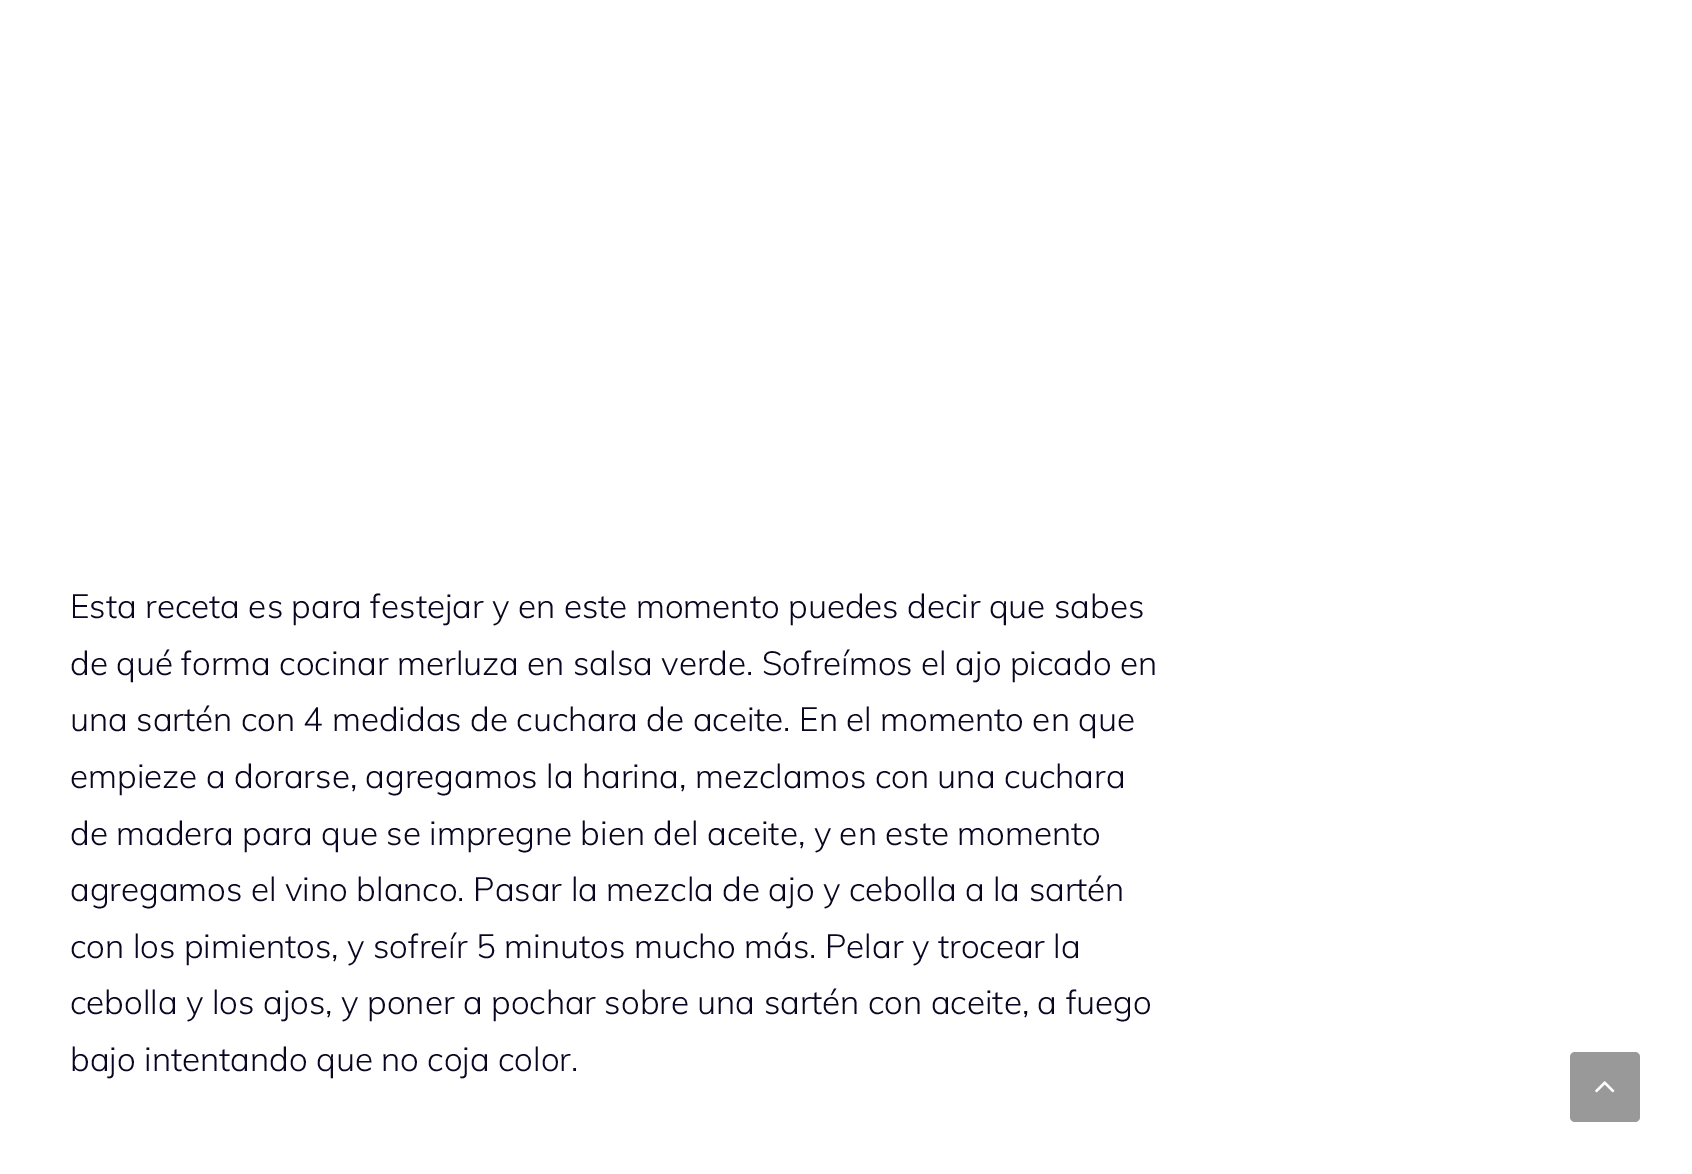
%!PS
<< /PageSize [1692 1174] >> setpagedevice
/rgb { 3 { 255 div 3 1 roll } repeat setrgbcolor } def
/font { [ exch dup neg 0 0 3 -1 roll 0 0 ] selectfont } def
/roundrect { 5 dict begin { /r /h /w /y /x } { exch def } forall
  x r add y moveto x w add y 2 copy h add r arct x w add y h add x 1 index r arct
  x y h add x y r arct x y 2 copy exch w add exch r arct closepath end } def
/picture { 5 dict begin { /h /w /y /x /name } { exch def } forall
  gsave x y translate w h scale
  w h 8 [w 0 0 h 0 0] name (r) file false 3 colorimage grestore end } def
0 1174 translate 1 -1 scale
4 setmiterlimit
255 255 255 rgb
0 0 1692 1174 rectfill
153 153 153 rgb
1570 1052 70 70 5 roundrect fill
(img/1.rgb) 1595 1081 20 12 picture
/Muli-Light 33.25 font
11 5 33 rgb
[
  [(Esta receta es para festejar y en este momento puedes decir que sabes) 70 618]
  [(de qué forma cocinar merluza en salsa verde. Sofreímos el ajo picado en) 70 675]
  [(una sartén con 4 medidas de cuchara de aceite. En el momento en que) 70 731]
  [(empieze a dorarse, agregamos la harina, mezclamos con una cuchara) 70 788]
  [(de madera para que se impregne bien del aceite, y en este momento) 70 845]
  [(agregamos el vino blanco. Pasar la mezcla de ajo y cebolla a la sartén) 70 901]
  [(con los pimientos, y sofreír 5 minutos mucho más. Pelar y trocear la) 70 958]
  [(cebolla y los ajos, y poner a pochar sobre una sartén con aceite, a fuego) 70 1014]
  [(bajo intentando que no coja color.) 70 1071]
] { aload pop moveto show } forall
showpage
